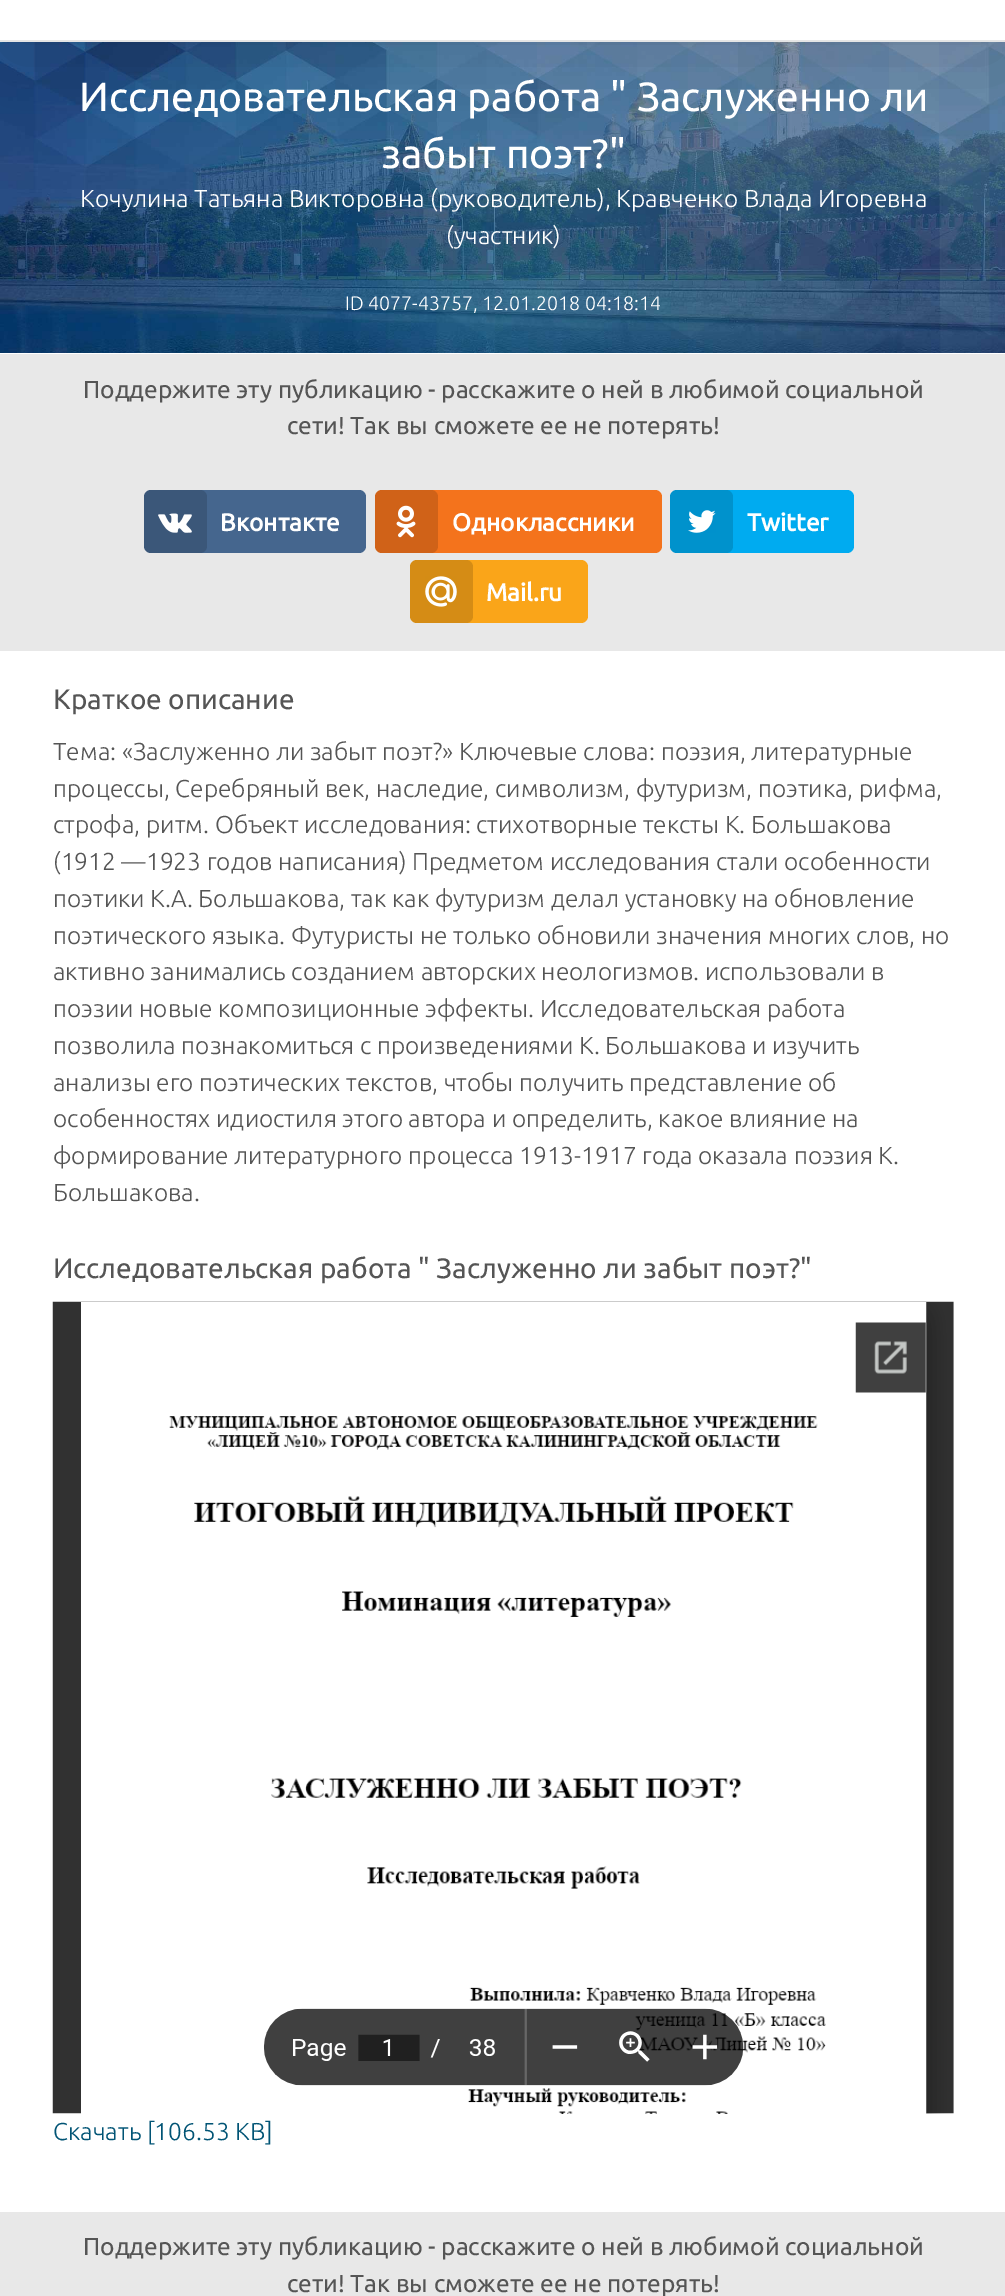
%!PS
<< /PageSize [1005 2296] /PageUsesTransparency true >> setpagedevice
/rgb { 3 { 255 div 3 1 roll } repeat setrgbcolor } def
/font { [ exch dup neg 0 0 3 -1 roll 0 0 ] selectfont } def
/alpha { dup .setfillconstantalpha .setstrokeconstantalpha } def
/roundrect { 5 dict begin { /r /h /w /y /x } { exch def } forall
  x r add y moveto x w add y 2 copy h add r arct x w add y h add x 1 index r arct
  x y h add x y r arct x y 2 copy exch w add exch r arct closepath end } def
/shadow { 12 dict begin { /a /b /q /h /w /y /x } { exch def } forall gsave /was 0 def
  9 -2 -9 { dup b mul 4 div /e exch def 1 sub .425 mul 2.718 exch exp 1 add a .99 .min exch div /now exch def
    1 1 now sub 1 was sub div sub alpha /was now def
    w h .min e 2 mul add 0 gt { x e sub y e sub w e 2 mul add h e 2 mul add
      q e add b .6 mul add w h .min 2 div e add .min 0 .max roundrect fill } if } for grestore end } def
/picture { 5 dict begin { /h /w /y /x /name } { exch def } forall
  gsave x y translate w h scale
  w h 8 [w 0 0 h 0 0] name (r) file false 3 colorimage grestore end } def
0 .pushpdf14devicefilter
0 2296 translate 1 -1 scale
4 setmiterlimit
255 255 255 rgb
0 0 1005 2296 rectfill
(img/1.rgb) 0 42 1005 311 picture
0 0 0 rgb
4 -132 999 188 0 44 0.14 shadow
[
  [0 0 1005 40 255 255 255]
  [0 40 1005 2 229 229 229]
  [0 354 1005 297 232 232 232]
] { aload pop rgb rectfill } forall
69 102 142 rgb
144 490 222 63 7 roundrect fill
0.15 alpha
0 0 0 rgb
144 490 63 63 7 roundrect fill
1 alpha
(img/2.rgb) 158 513 34 20 picture
244 115 28 rgb
375 490 287 63 7 roundrect fill
0.15 alpha
0 0 0 rgb
375 490 63 63 7 roundrect fill
1 alpha
(img/3.rgb) 396 505 20 33 picture
0 171 240 rgb
670 490 184 63 7 roundrect fill
0.15 alpha
0 0 0 rgb
670 490 63 63 7 roundrect fill
1 alpha
(img/4.rgb) 688 510 28 23 picture
250 165 25 rgb
410 560 178 63 7 roundrect fill
0.15 alpha
0 0 0 rgb
410 560 63 63 7 roundrect fill
1 alpha
(img/5.rgb) 425 576 32 31 picture
(img/6.rgb) 52 1301 902 813 picture
232 232 232 rgb
0 2212 1005 84 rectfill
/Ubuntu-Regular 40.75 font
255 255 255 rgb
79 111 moveto (Исследовательская работа " Заслуженно ли) show
381 168 moveto (забыт поэт?") show
/Ubuntu-Light 24.5 font
80 207 moveto (Кочулина Татьяна Викторовна \(руководитель\), Кравченко Влада Игоревна) show
446 244 moveto (\(участник\)) show
/Ubuntu-Light 19.6 font
345 310 moveto (ID 4077-43757, 12.01.2018 04:18:14) show
/Ubuntu-Regular 24.5 font
85 85 85 rgb
83 398 moveto (Поддержите эту публикацию - расскажите о ней в любимой социальной) show
287 434 moveto (сети! Так вы сможете ее не потерять!) show
/Ubuntu-Bold 24.5 font
255 255 255 rgb
[
  [(Вконтакте) 220 531]
  [(Одноклассники) 452 531]
  [(Twitter) 747 531]
  [(Mail.ru) 486 601]
] { aload pop moveto show } forall
/Ubuntu-Regular 28 font
85 85 85 rgb
53 709 moveto (Краткое описание) show
/Ubuntu-Light 24.5 font
[
  [(Тема: «Заслуженно ли забыт поэт?» Ключевые слова: поэзия, литературные) 53 760]
  [(процессы, Серебряный век, наследие, символизм, футуризм, поэтика, рифма,) 53 797]
  [(строфа, ритм. Объект исследования: стихотворные тексты К. Большакова) 53 833]
  [(\(1912 —1923 годов написания\) Предметом исследования стали особенности) 53 870]
  [(поэтики К.А. Большакова, так как футуризм делал установку на обновление) 53 907]
  [(поэтического языка. Футуристы не только обновили значения многих слов, но) 53 944]
  [(активно занимались созданием авторских неологизмов. использовали в) 53 980]
  [(поэзии новые композиционные эффекты. Исследовательская работа) 53 1017]
  [(позволила познакомиться с произведениями К. Большакова и изучить) 53 1054]
  [(анализы его поэтических текстов, чтобы получить представление об) 53 1091]
  [(особенностях идиостиля этого автора и определить, какое влияние на) 53 1127]
  [(формирование литературного процесса 1913-1917 года оказала поэзия К.) 53 1164]
  [(Большакова.) 53 1201]
] { aload pop moveto show } forall
/Ubuntu-Regular 28 font
53 1278 moveto (Исследовательская работа " Заслуженно ли забыт поэт?") show
/Ubuntu-Light 24.5 font
1 84 117 rgb
53 2140 moveto (Скачать [106.53 KB]) show
/Ubuntu-Regular 24.5 font
85 85 85 rgb
83 2255 moveto (Поддержите эту публикацию - расскажите о ней в любимой социальной) show
287 2292 moveto (сети! Так вы сможете ее не потерять!) show
.poppdf14devicefilter showpage
